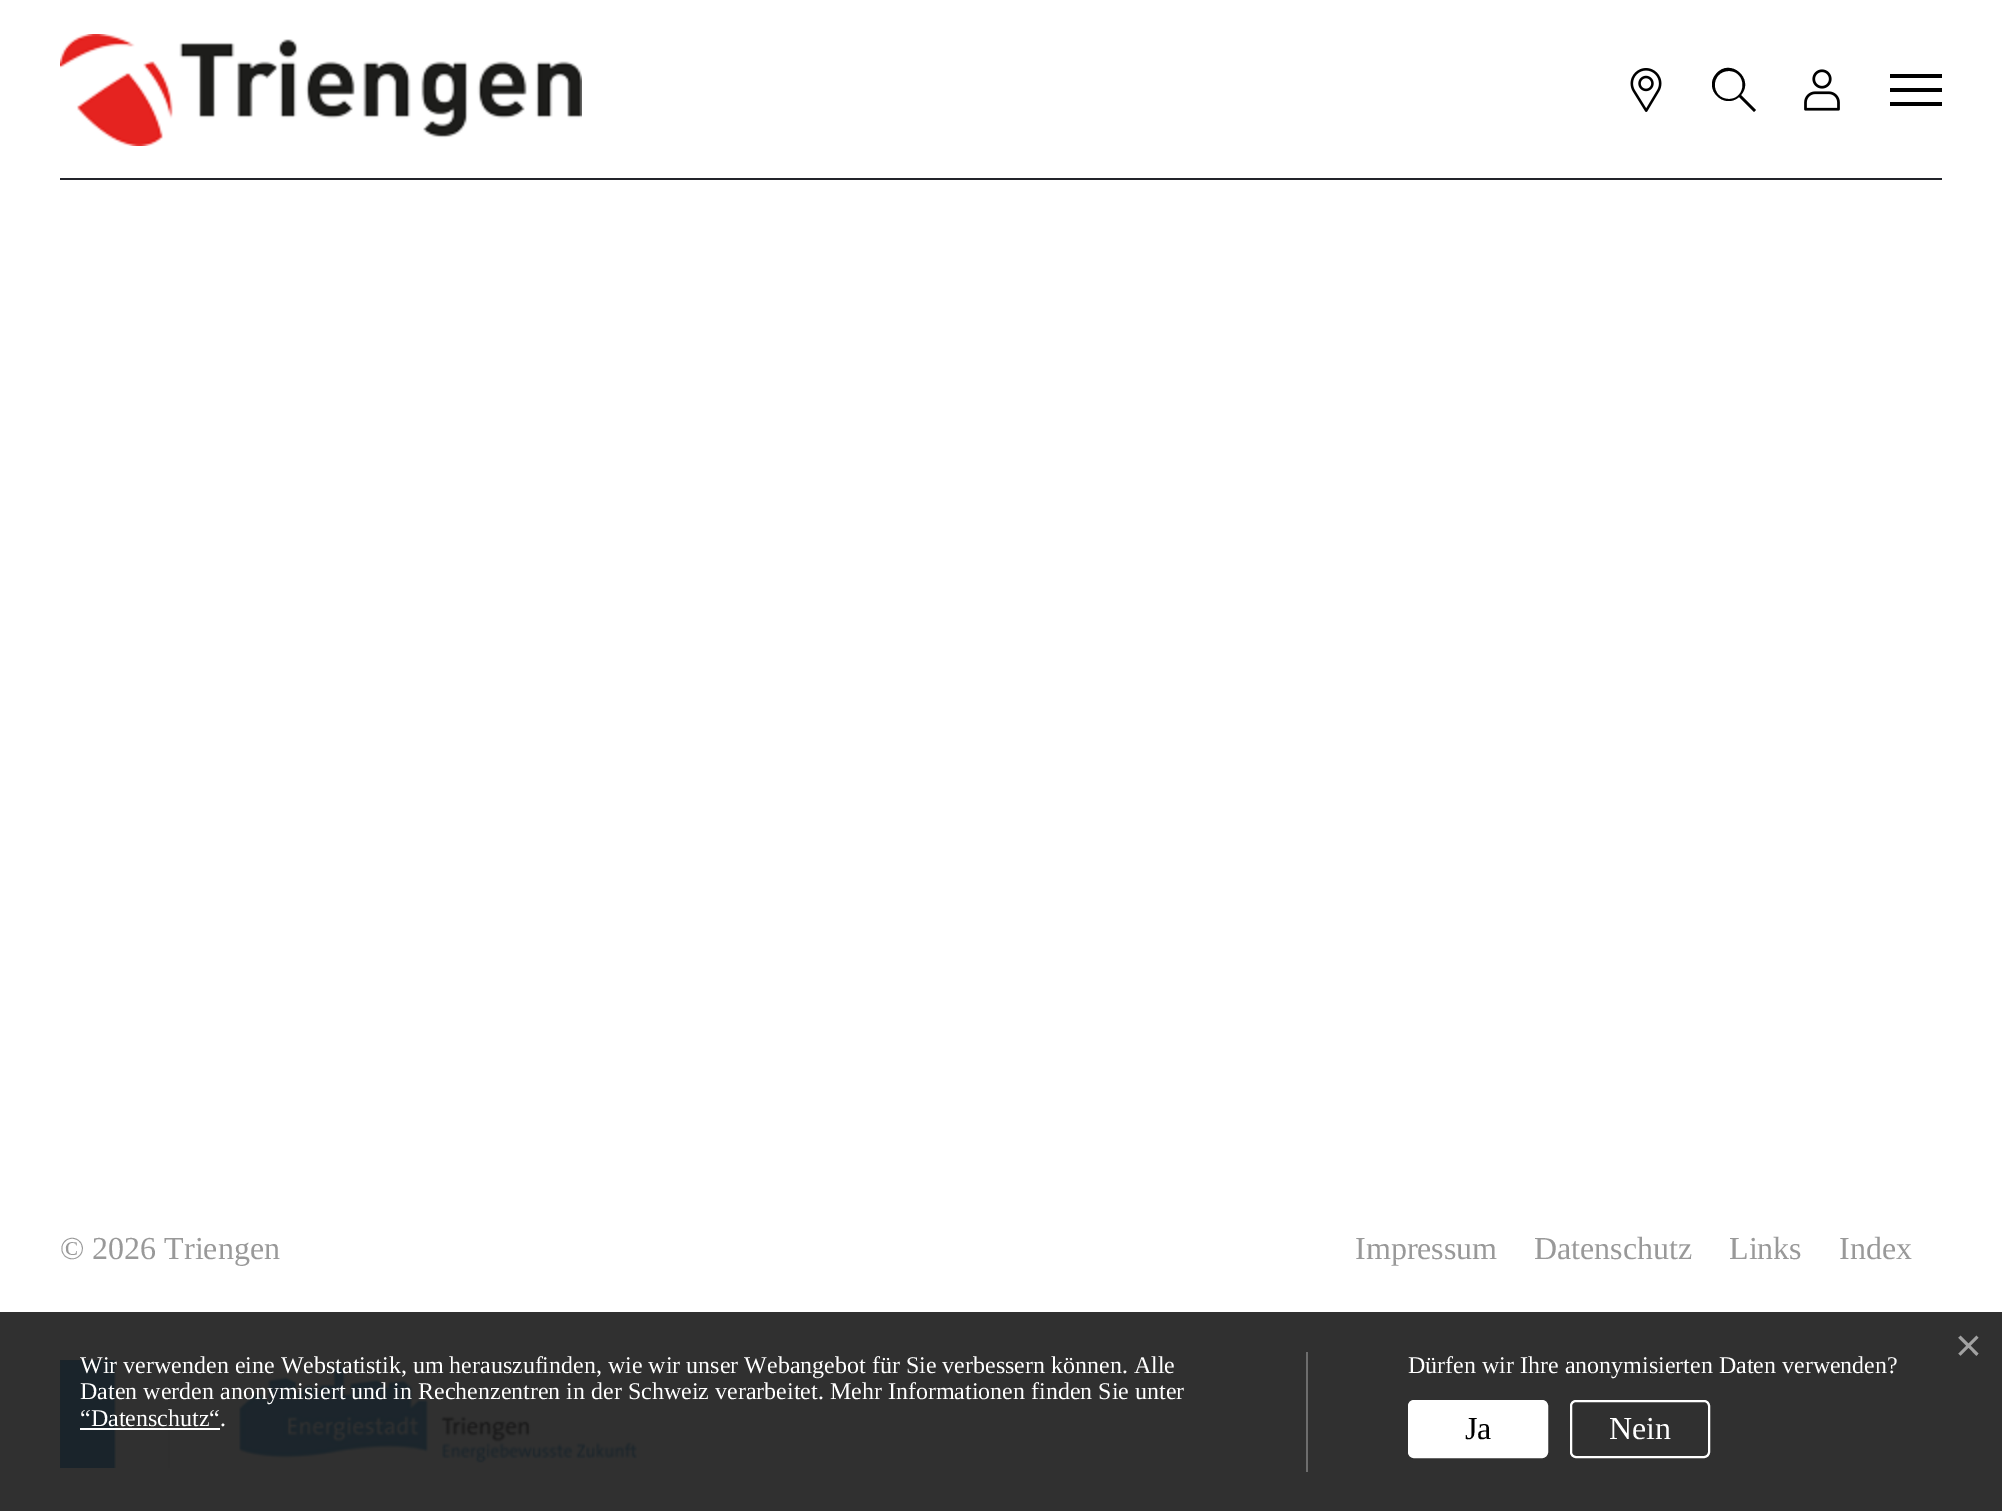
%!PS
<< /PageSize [2002 1511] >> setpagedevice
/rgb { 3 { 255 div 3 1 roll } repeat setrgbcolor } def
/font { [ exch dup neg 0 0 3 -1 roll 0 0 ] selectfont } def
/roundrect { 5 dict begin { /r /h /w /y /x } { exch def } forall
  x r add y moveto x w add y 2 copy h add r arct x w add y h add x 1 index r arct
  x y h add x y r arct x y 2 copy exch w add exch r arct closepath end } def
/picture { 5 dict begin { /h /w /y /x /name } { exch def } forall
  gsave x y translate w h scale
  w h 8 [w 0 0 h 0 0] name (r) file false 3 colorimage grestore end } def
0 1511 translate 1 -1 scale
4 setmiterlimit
255 255 255 rgb
0 0 2002 1511 rectfill
48 48 48 rgb
0 1312 2002 199 rectfill
(img/1.rgb) 60 34 522 112 picture
(img/2.rgb) 1630 68 32 44 picture
0 0 0 rgb
1741 95 moveto 1755 79 1730 57 1716 74 curveto 1703 89 1724 110 1739 97 curveto 1754 112 lineto 1756 110 lineto closepath 1729 99 moveto 1710 99 1710 71 1729 71 curveto 1747 71 1747 99 1729 99 curveto closepath fill
(img/3.rgb) 1804 69 36 42 picture
[
  [1890 74 52 4 0 0 0]
  [1890 88 52 4 0 0 0]
  [1890 102 52 4 0 0 0]
  [60 178 1882 2 35 36 42]
] { aload pop rgb rectfill } forall
(img/4.rgb) 60 1360 110 108 picture
(img/5.rgb) 239 1362 399 101 picture
109 109 109 rgb
1306 1352 2 120 rectfill
255 255 255 rgb
80 1428 140 2 rectfill
1409 1401 138 56 5 roundrect gsave fill grestore
2 setlinewidth
stroke
1571 1401 138 56 5 roundrect stroke
/LiberationSerif-Regular 32 font
153 153 153 rgb
[
  [(© 2026 Triengen) 60 1259]
  [(Impressum) 1355 1259]
  [(Datenschutz) 1534 1259]
  [(Links) 1729 1259]
  [(Index) 1839 1259]
] { aload pop moveto show } forall
/LiberationSans-Regular 46 font
162 162 162 rgb
1955 1361 moveto (×) show
/LiberationSerif-Regular 24 font
255 255 255 rgb
[
  [(Wir verwenden eine Webstatistik, um herauszufinden, wie wir unser Webangebot für Sie verbessern können. Alle) 80 1373]
  [(Daten werden anonymisiert und in Rechenzentren in der Schweiz verarbeitet. Mehr Informationen finden Sie unter) 80 1399]
  [(“Datenschutz“.) 80 1426]
  [(Dürfen wir Ihre anonymisierten Daten verwenden?) 1408 1373]
] { aload pop moveto show } forall
/LiberationSerif-Regular 32 font
0 0 0 rgb
1465 1439 moveto (Ja) show
255 255 255 rgb
1609 1439 moveto (Nein) show
showpage
